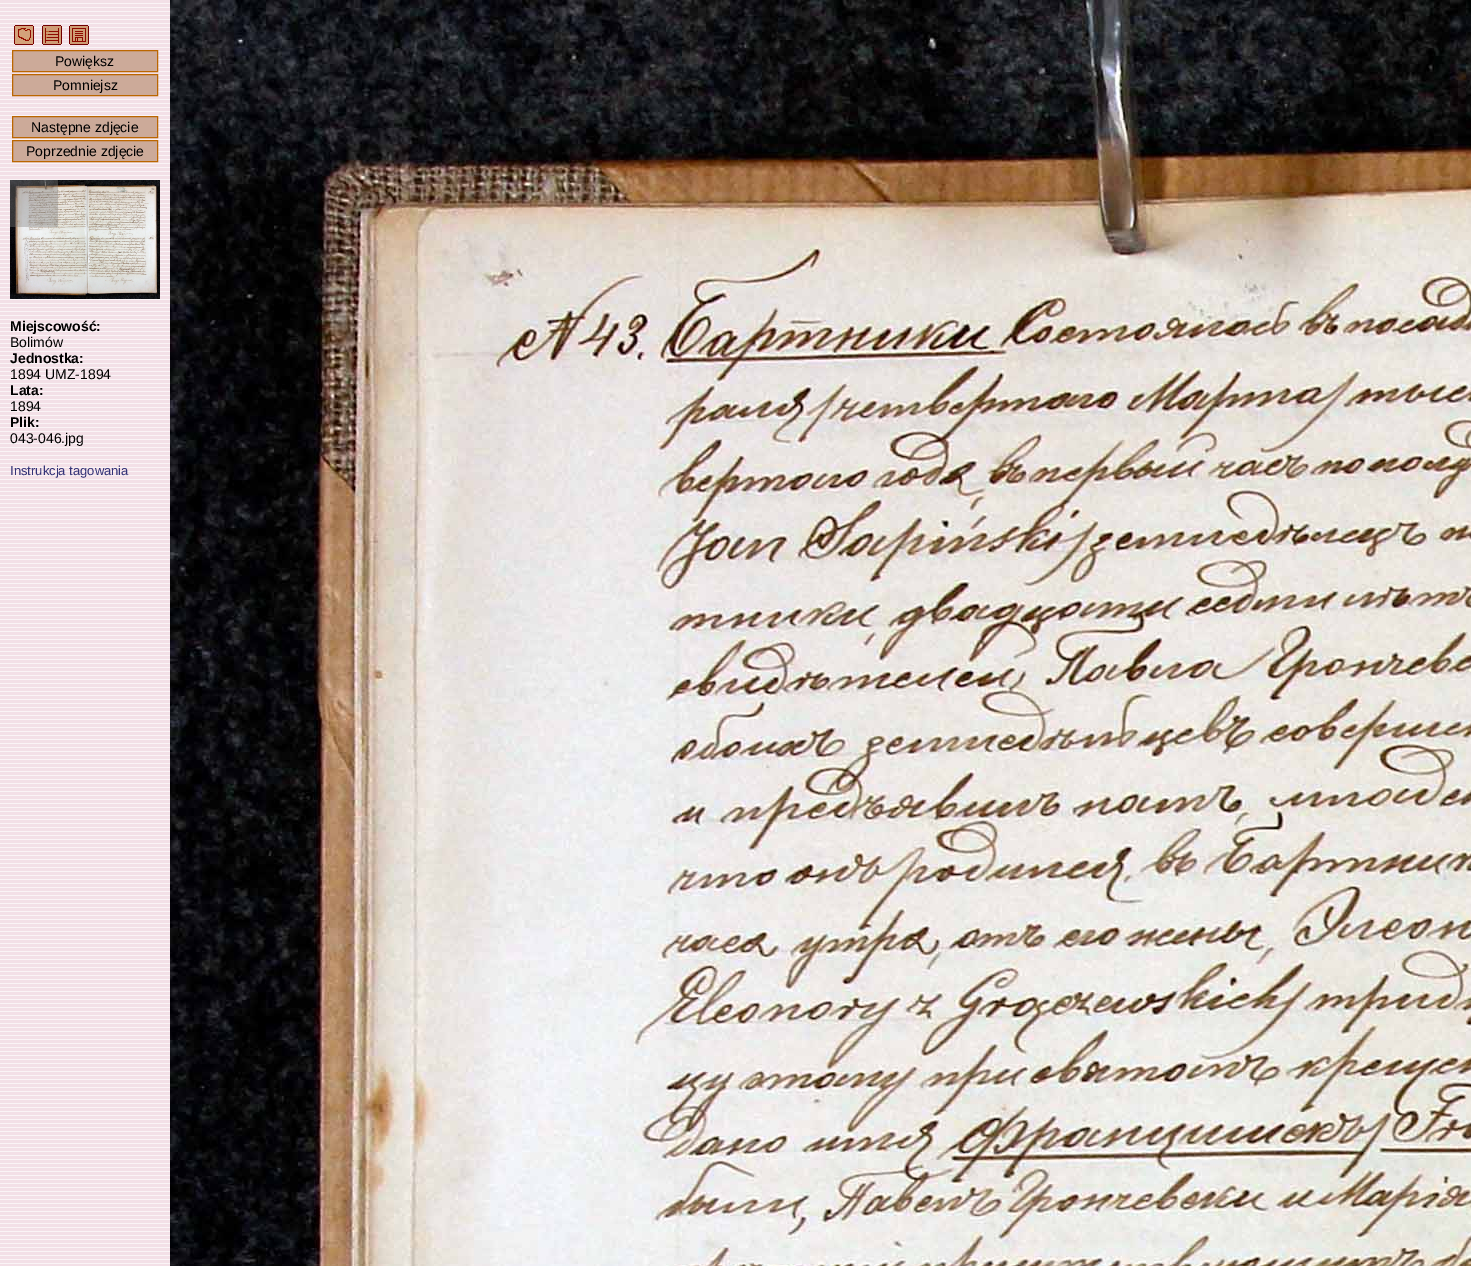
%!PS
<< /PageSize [1471 1266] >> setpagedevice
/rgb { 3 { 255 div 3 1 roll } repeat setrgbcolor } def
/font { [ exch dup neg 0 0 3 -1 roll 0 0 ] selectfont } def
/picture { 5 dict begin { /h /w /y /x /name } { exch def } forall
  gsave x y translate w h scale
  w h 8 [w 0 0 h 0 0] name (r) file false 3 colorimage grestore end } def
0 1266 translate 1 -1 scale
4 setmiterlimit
255 255 255 rgb
0 0 1471 1266 rectfill
(img/1.rgb) 0 0 170 1266 picture
(img/2.rgb) 14 25 20 20 picture
(img/3.rgb) 42 25 20 20 picture
(img/4.rgb) 69 25 20 20 picture
204 170 153 rgb
12.5 50.5 moveto 157.5 50.5 lineto 157.5 71.5 lineto 12.5 71.5 lineto closepath gsave fill grestore
187 102 0 rgb
stroke
204 170 153 rgb
12.5 74.5 moveto 157.5 74.5 lineto 157.5 95.5 lineto 12.5 95.5 lineto closepath gsave fill grestore
187 102 0 rgb
stroke
204 170 153 rgb
12.5 116.5 moveto 157.5 116.5 lineto 157.5 137.5 lineto 12.5 137.5 lineto closepath gsave fill grestore
187 102 0 rgb
stroke
204 170 153 rgb
12.5 140.5 moveto 157.5 140.5 lineto 157.5 161.5 lineto 12.5 161.5 lineto closepath gsave fill grestore
187 102 0 rgb
stroke
(img/5.rgb) 10 180 150 119 picture
(img/6.rgb) 170 0 1301 1266 picture
/LiberationSans-Regular 14 font
0 0 0 rgb
[
  [(Powiększ) 55 66]
  [(Pomniejsz) 53 90]
  [(Następne zdjęcie) 31 132]
  [(Poprzednie zdjęcie) 26 156]
] { aload pop moveto show } forall
/LiberationSans-Bold 14 font
10 331 moveto (Miejscowość:) show
/LiberationSans-Regular 14 font
10 347 moveto (Bolimów) show
/LiberationSans-Bold 14 font
10 363 moveto (Jednostka:) show
/LiberationSans-Regular 14 font
10 379 moveto (1894 UMZ-1894) show
/LiberationSans-Bold 14 font
10 395 moveto (Lata:) show
/LiberationSans-Regular 14 font
10 411 moveto (1894) show
/LiberationSans-Bold 14 font
10 427 moveto (Plik:) show
/LiberationSans-Regular 14 font
10 443 moveto (043-046.jpg) show
/LiberationSans-Regular 13 font
51 51 119 rgb
10 475 moveto (Instrukcja tagowania) show
showpage
